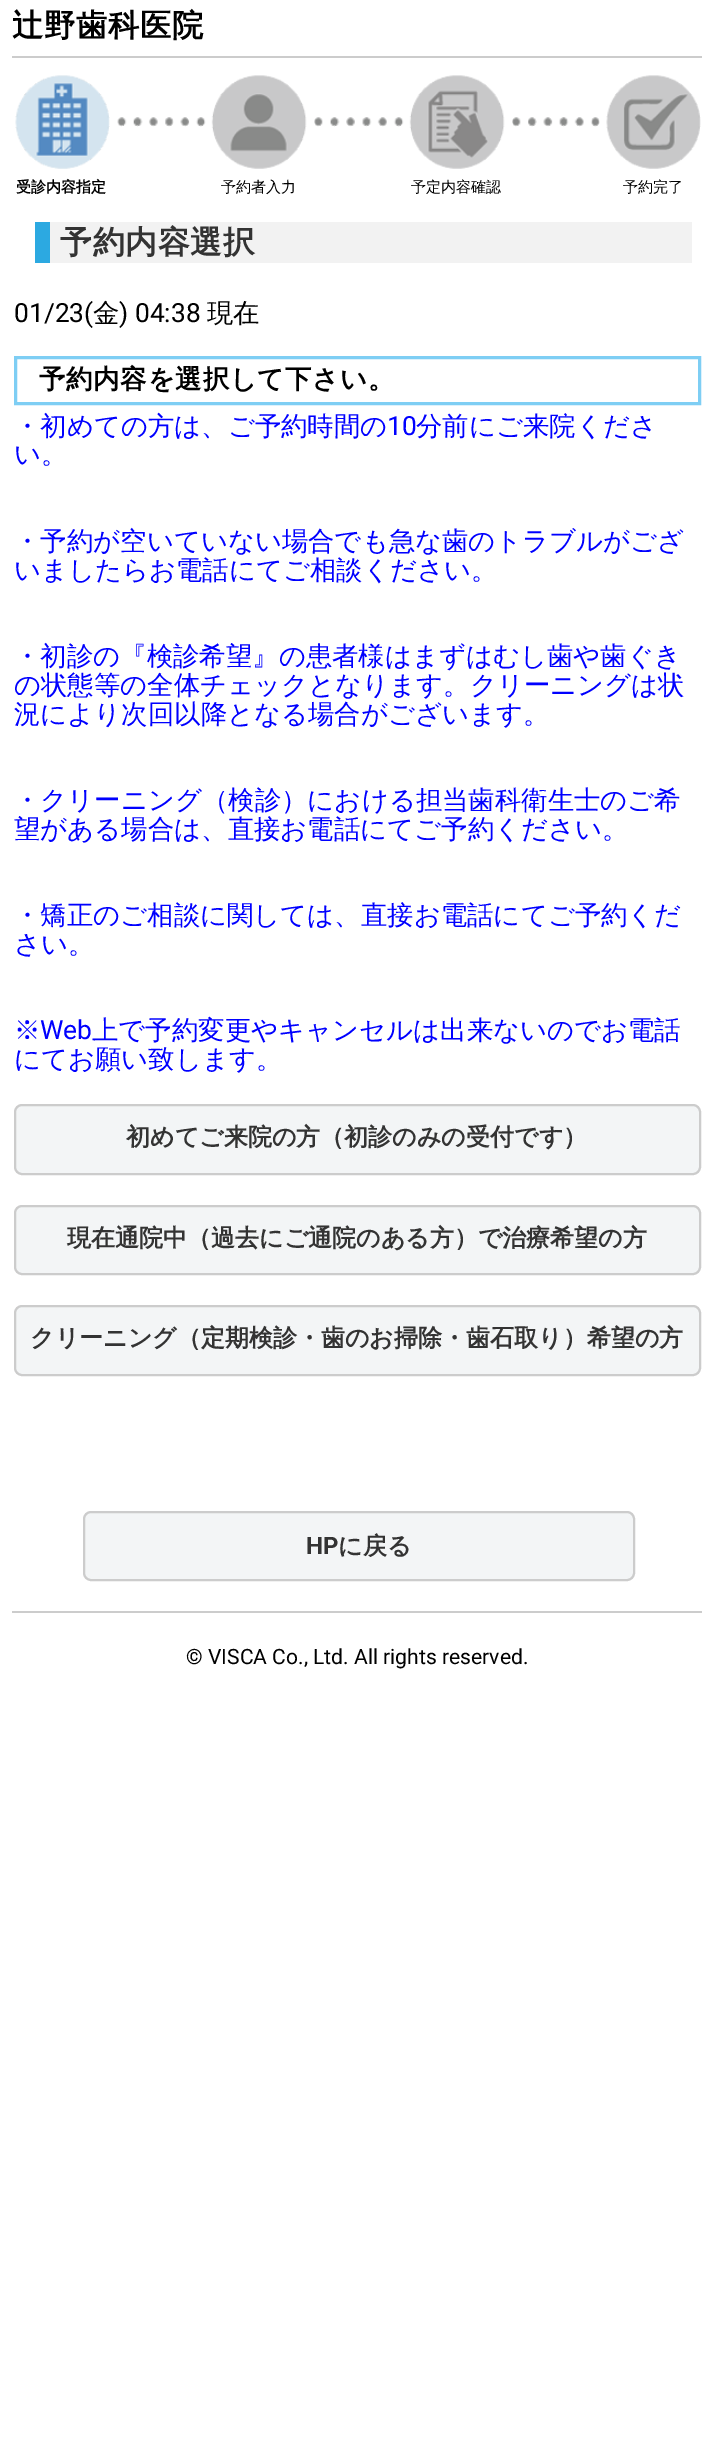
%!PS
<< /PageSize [713 2443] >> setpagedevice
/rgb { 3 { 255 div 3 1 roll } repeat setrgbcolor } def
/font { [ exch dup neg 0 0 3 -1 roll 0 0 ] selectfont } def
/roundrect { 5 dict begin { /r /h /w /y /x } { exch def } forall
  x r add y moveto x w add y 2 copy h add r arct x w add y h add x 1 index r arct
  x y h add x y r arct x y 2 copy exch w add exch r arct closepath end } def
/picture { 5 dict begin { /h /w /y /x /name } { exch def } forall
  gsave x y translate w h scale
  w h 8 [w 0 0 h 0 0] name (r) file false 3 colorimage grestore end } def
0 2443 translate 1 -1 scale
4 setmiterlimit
255 255 255 rgb
0 0 713 2443 rectfill
204 204 204 rgb
12 56 690 2 rectfill
(img/1.rgb) 117 117 89 10 picture
(img/2.rgb) 314 117 90 10 picture
(img/3.rgb) 512 117 88 10 picture
(img/4.rgb) 15 75 95 94 picture
(img/5.rgb) 211 75 96 94 picture
(img/6.rgb) 409 75 96 94 picture
(img/7.rgb) 606 75 95 94 picture
242 242 242 rgb
50 222 642 41 rectfill
44 169 225 rgb
35 222 15 41 rectfill
126 206 244 rgb
3 setlinewidth
15.5 357.5 684 46 rectstroke
243 245 246 rgb
15 1105 685 69 7 roundrect gsave fill grestore
204 204 204 rgb
2 setlinewidth
stroke
243 245 246 rgb
15 1206 685 68 7 roundrect gsave fill grestore
204 204 204 rgb
stroke
243 245 246 rgb
15 1306 685 69 7 roundrect gsave fill grestore
204 204 204 rgb
stroke
243 245 246 rgb
84 1512 550 68 7 roundrect gsave fill grestore
204 204 204 rgb
stroke
12 1611 690 2 rectfill
/WenQuanYiZenHei-Bold 31.25 font
0 0 0 rgb
12 36 moveto 0.75 0 (辻野歯科医院) ashow
/WenQuanYiZenHei-Bold 15 font
16 192 moveto (受診内容指定) show
/WenQuanYiZenHei-Medium 15 font
[
  [(予約者入力) 221 192]
  [(予定内容確認) 411 192]
  [(予約完了) 623 192]
] { aload pop moveto show } forall
/WenQuanYiZenHei-Bold 31.75 font
51 51 51 rgb
60 253 moveto 0.75 0 (予約内容選択) ashow
/Roboto-Regular 26.4 font
0 0 0 rgb
14 322 moveto (01/23\() show
/WenQuanYiZenHei-Medium 26.4 font
93 322 moveto (金) show
/Roboto-Regular 26.4 font
119 322 moveto (\) 04:38) show
/WenQuanYiZenHei-Medium 26.4 font
207 322 moveto (現在) show
/WenQuanYiZenHei-Bold 26.4 font
39 388 moveto 0.75 0 (予約内容を選択して下さい。) ashow
/WenQuanYiZenHei-Medium 26.4 font
0 0 255 rgb
14 435 moveto (・初めての方は、ご予約時間の) show
/Roboto-Regular 26.4 font
387 435 moveto (10) show
/WenQuanYiZenHei-Medium 26.4 font
[
  [(分前にご来院くださ) 416 435]
  [(い。) 14 463]
  [(・予約が空いていない場合でも急な歯のトラブルがござ) 14 550]
  [(いましたらお電話にてご相談ください。) 14 579]
  [(・初診の『検診希望』の患者様はまずはむし歯や歯ぐき) 14 665]
  [(の状態等の全体チェックとなります。クリーニングは状) 14 694]
  [(況により次回以降となる場合がございます。) 14 723]
  [(・クリーニング（検診）における担当歯科衛生士のご希) 14 809]
  [(望がある場合は、直接お電話にてご予約ください。) 14 838]
  [(・矯正のご相談に関しては、直接お電話にてご予約くだ) 14 924]
  [(さい。) 14 953]
  [(※) 14 1039]
] { aload pop moveto show } forall
/Roboto-Regular 26.4 font
40 1039 moveto (Web) show
/WenQuanYiZenHei-Medium 26.4 font
92 1039 moveto (上で予約変更やキャンセルは出来ないのでお電話) show
14 1068 moveto (にてお願い致します。) show
/WenQuanYiZenHei-Bold 24 font
51 51 51 rgb
[
  [(初めてご来院の方（初診のみの受付です）) 126 1145]
  [(現在通院中（過去にご通院のある方）で治療希望の方) 67 1246]
  [(クリーニング（定期検診・歯のお掃除・歯石取り）希望の方) 30 1346]
] { aload pop moveto show } forall
/Roboto-Bold 24 font
306 1554 moveto (HP) show
/WenQuanYiZenHei-Bold 24 font
338 1554 moveto (に戻る) show
/Roboto-Regular 21.1 font
0 0 0 rgb
186 1664 moveto (© VISCA Co., Ltd. All rights reserved.) show
showpage
